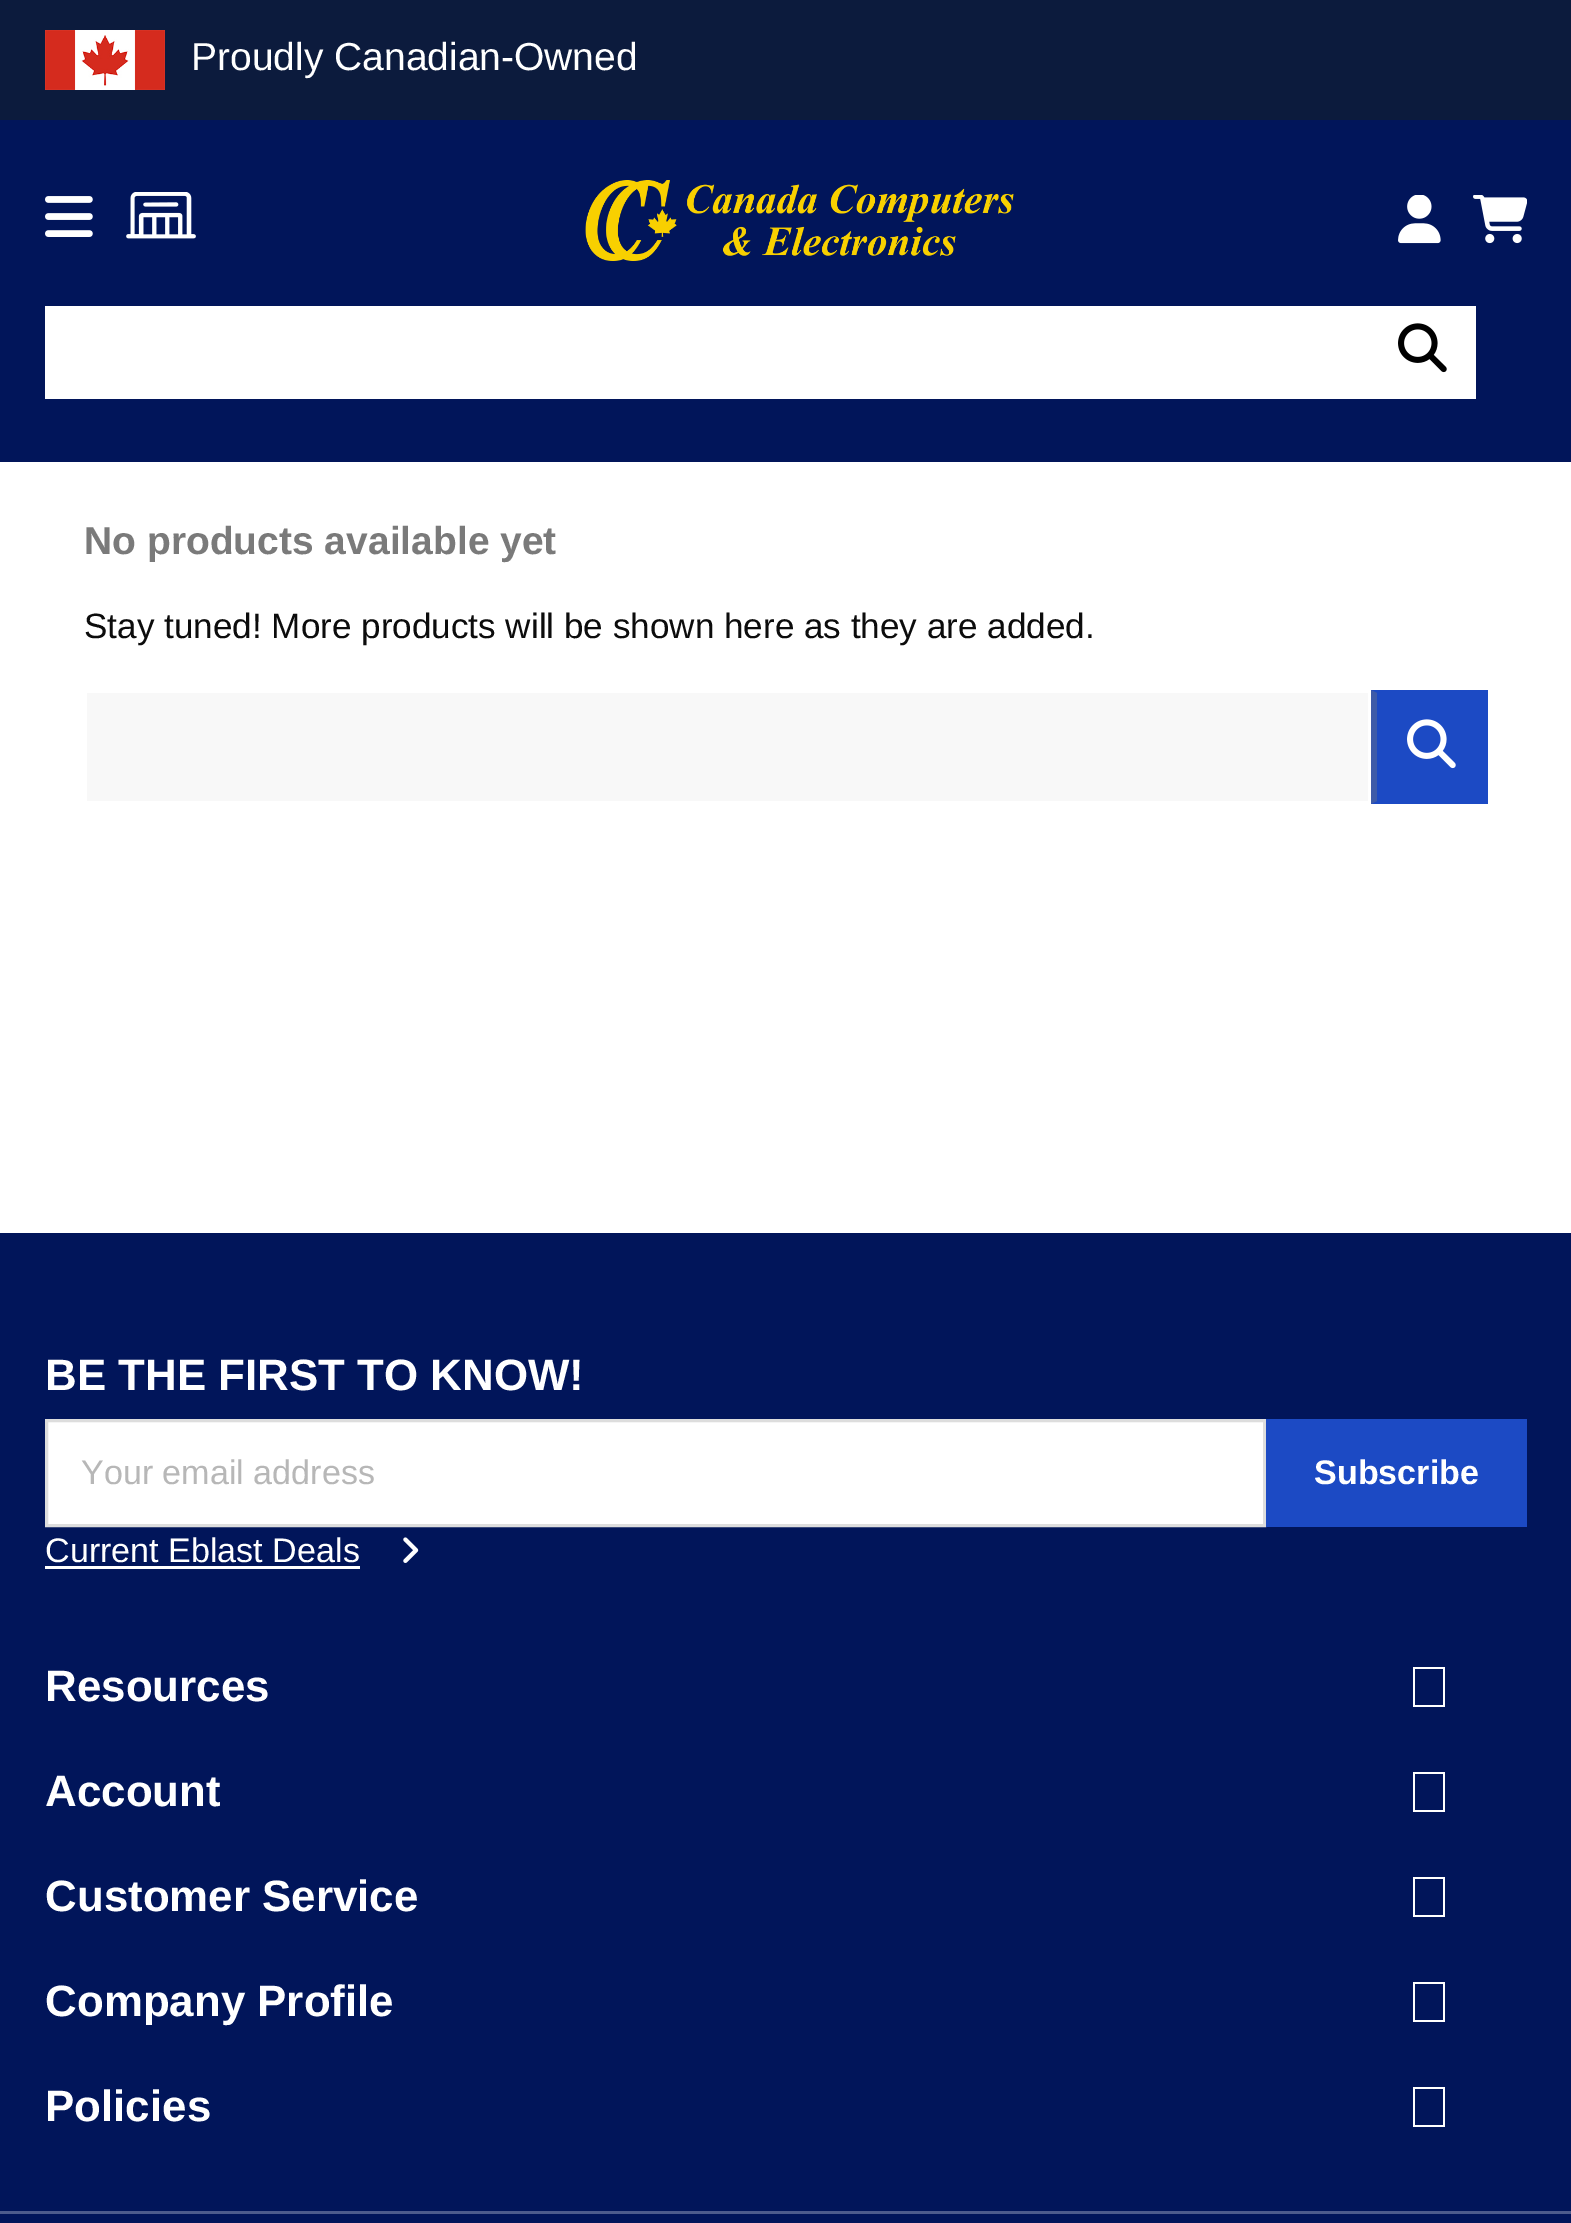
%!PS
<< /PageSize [1571 2223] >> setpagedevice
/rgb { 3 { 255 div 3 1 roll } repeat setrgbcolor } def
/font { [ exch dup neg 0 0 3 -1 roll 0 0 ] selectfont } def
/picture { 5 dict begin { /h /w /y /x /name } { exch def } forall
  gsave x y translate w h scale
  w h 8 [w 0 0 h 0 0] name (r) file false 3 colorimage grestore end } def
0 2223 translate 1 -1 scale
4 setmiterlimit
255 255 255 rgb
0 0 1571 2223 rectfill
1 21 90 rgb
0 120 1571 342 rectfill
12 27 61 rgb
0 0 1571 120 rectfill
(img/1.rgb) 45 30 120 60 picture
(img/2.rgb) 45 196 48 41 picture
(img/3.rgb) 126 192 70 47 picture
(img/4.rgb) 585 180 429 81 picture
(img/5.rgb) 1398 195 43 49 picture
(img/6.rgb) 1473 195 54 49 picture
255 255 255 rgb
45 306 1431 93 rectfill
(img/7.rgb) 1398 323 49 50 picture
248 248 248 rgb
87 693 1281 108 rectfill
28 74 196 rgb
1371 690 117 114 rectfill
62 91 168 rgb
1371 804 moveto 1371 690 lineto 1377 693 lineto 1377 801 lineto closepath fill
(img/8.rgb) 1407 719 49 50 picture
1 21 90 rgb
0 1233 1571 990 rectfill
255 255 255 rgb
46.5 1420.5 moveto 1264.5 1420.5 lineto 1264.5 1525.5 lineto 46.5 1525.5 lineto closepath gsave fill grestore
221 221 221 rgb
3 setlinewidth
stroke
28 74 196 rgb
1266 1419 261 108 rectfill
255 255 255 rgb
45 1566 315 3 rectfill
(img/9.rgb) 403 1537 16 26 picture
1413 1667 moveto 1445 1667 lineto 1445 1707 lineto 1413 1707 lineto closepath 1415 1669 moveto 1415 1705 lineto 1443 1705 lineto 1443 1669 lineto closepath fill
1413 1772 moveto 1445 1772 lineto 1445 1812 lineto 1413 1812 lineto closepath 1415 1774 moveto 1415 1810 lineto 1443 1810 lineto 1443 1774 lineto closepath fill
1413 1877 moveto 1445 1877 lineto 1445 1917 lineto 1413 1917 lineto closepath 1415 1879 moveto 1415 1915 lineto 1443 1915 lineto 1443 1879 lineto closepath fill
1413 1982 moveto 1445 1982 lineto 1445 2022 lineto 1413 2022 lineto closepath 1415 1984 moveto 1415 2020 lineto 1443 2020 lineto 1443 1984 lineto closepath fill
1413 2087 moveto 1445 2087 lineto 1445 2127 lineto 1413 2127 lineto closepath 1415 2089 moveto 1415 2125 lineto 1443 2125 lineto 1443 2089 lineto closepath fill
77 91 140 rgb
0 2211 1571 3 rectfill
/LiberationSans-Regular 39 font
255 255 255 rgb
191 70 moveto (Proudly Canadian-Owned) show
/LiberationSans-Bold 39 font
122 122 122 rgb
84 554 moveto (No products available yet) show
/LiberationSans-Regular 35.1 font
12 12 12 rgb
84 638 moveto (Stay tuned! More products will be shown here as they are added.) show
/LiberationSans-Bold 43.9 font
255 255 255 rgb
45 1390 moveto (BE THE FIRST TO KNOW!) show
/LiberationSans-Regular 34.1 font
183 183 183 rgb
81 1484 moveto (Your email address) show
/LiberationSans-Bold 34.1 font
255 255 255 rgb
1314 1484 moveto (Subscribe) show
/LiberationSans-Regular 34.1 font
45 1562 moveto (Current Eblast Deals) show
/LiberationSans-Bold 43.9 font
[
  [(Resources) 45 1701]
  [(Account) 45 1806]
  [(Customer Service) 45 1911]
  [(Company Profile) 45 2016]
  [(Policies) 45 2121]
] { aload pop moveto show } forall
showpage
